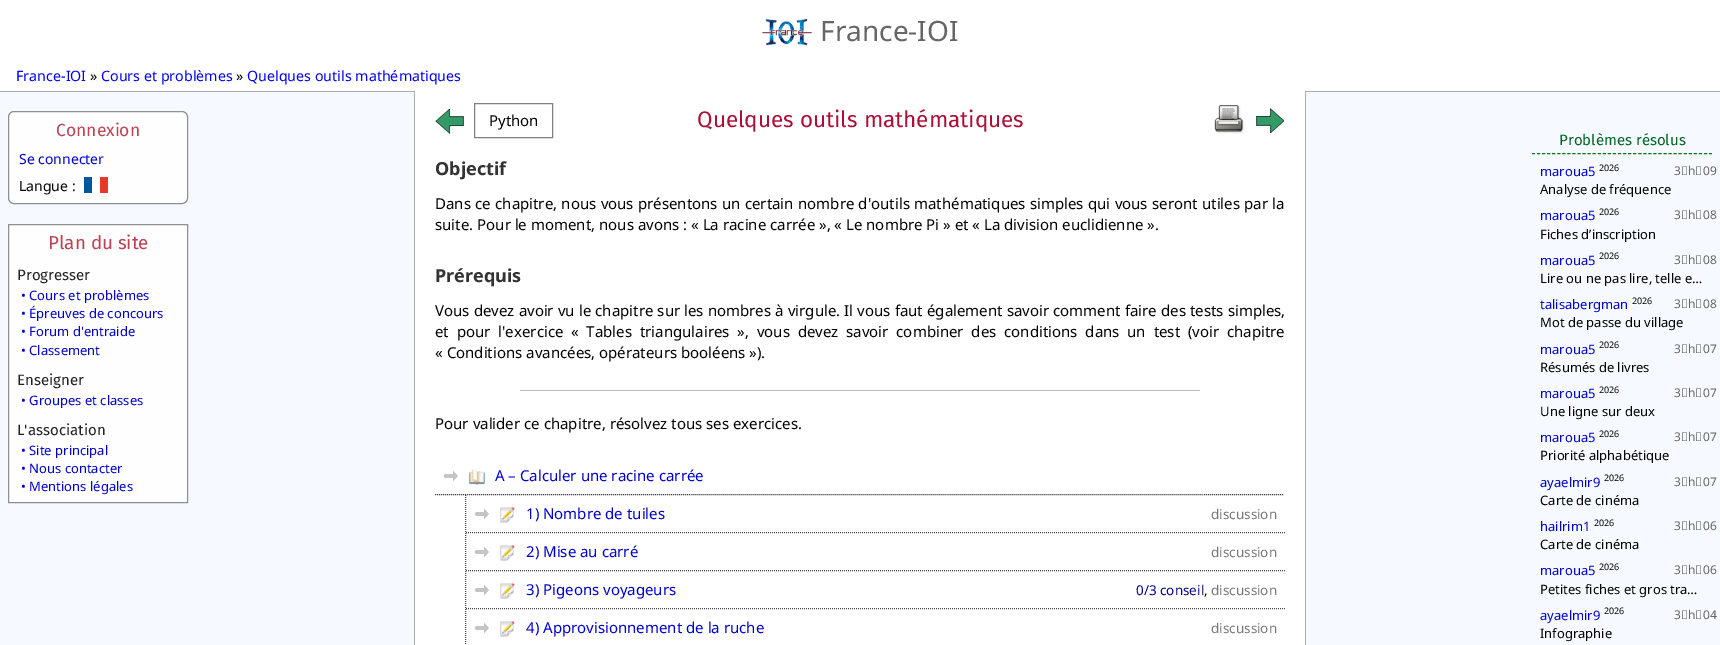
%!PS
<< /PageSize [1720 645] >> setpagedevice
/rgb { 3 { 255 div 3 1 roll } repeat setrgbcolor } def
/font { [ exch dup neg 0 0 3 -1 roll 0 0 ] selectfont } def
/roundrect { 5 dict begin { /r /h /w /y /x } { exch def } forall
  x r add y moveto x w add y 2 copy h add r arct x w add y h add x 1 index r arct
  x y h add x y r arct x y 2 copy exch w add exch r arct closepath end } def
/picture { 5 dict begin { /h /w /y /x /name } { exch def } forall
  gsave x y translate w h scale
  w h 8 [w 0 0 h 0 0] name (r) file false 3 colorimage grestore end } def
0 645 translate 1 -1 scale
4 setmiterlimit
246 249 255 rgb
0 0 1720 645 rectfill
255 255 255 rgb
0 0 1720 91 rectfill
(img/1.rgb) 762 18 50 28 picture
[
  [0 91 1720 1 170 170 170]
  [415 91 890 554 255 255 255]
  [1305 91 1 554 170 170 170]
  [414 91 1 554 170 170 170]
] { aload pop rgb rectfill } forall
(img/2.rgb) 435 108 29 26 picture
128 128 128 rgb
474.5 103.5 78 34 rectstroke
(img/3.rgb) 1214 105 31 29 picture
(img/4.rgb) 1256 108 28 25 picture
187 187 187 rgb
520 390 680 1 rectfill
68 68 68 rgb
[1 1] 0 setdash
435 494.5 moveto 1285 494.5 lineto stroke
(img/5.rgb) 443 471 15 10 picture
(img/6.rgb) 469 469 16 16 picture
465.5 495 moveto 465.5 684 lineto stroke
466 532.5 moveto 1285 532.5 lineto stroke
(img/5.rgb) 474 509 15 10 picture
(img/7.rgb) 500 507 15 16 picture
466 570.5 moveto 1285 570.5 lineto stroke
(img/5.rgb) 474 547 15 10 picture
(img/7.rgb) 500 545 15 16 picture
466 608.5 moveto 1285 608.5 lineto stroke
(img/5.rgb) 474 585 15 10 picture
(img/7.rgb) 500 583 15 16 picture
(img/5.rgb) 474 623 15 10 picture
(img/7.rgb) 500 621 15 16 picture
254 254 254 rgb
8.5 111.5 179 92 5.5 roundrect gsave fill grestore
144 144 144 rgb
[] 0 setdash
stroke
(img/8.rgb) 84 177 24 16 picture
0 119 34 rgb
[3 2.06] 0 setdash
1532 153.5 moveto 1712 153.5 lineto stroke
254 254 254 rgb
8.5 224.5 moveto 187.5 224.5 lineto 187.5 502.5 lineto 8.5 502.5 lineto closepath gsave fill grestore
144 144 144 rgb
[] 0 setdash
stroke
/NotoSans-Regular 28 font
102 102 102 rgb
820 41 moveto (France-IOI) show
/NotoSans-Regular 14.25 font
0 0 238 rgb
16 81 moveto (France-IOI) show
0 0 0 rgb
90 81 moveto (») show
0 0 238 rgb
101 81 moveto (Cours et problèmes) show
0 0 0 rgb
236 81 moveto (») show
0 0 238 rgb
247 81 moveto (Quelques outils mathématiques) show
/NotoSans-Regular 15 font
0 0 0 rgb
489 126 moveto (Python) show
/FiraSans-Regular 22.5 font
172 16 56 rgb
697 127 moveto (Quelques outils mathématiques) show
/NotoSans-Bold 18 font
51 51 51 rgb
435 175 moveto (Objectif) show
/NotoSans-Regular 15 font
0 0 0 rgb
435 209 moveto 0.4 0 32 (Dans ce chapitre, nous vous présentons un certain nombre d'outils mathématiques simples qui vous seront utiles par la) widthshow
435 230 moveto (suite. Pour le moment, nous avons : « La racine carrée », « Le nombre Pi » et « La division euclidienne ».) show
/NotoSans-Bold 18 font
51 51 51 rgb
435 282 moveto (Prérequis) show
/NotoSans-Regular 15 font
0 0 0 rgb
435 316 moveto 0.2 0 32 (Vous devez avoir vu le chapitre sur les nombres à virgule. Il vous faut également savoir comment faire des tests simples,) widthshow
435 337 moveto 3.9 0 32 (et pour l'exercice « Tables triangulaires », vous devez savoir combiner des conditions dans un test \(voir chapitre) widthshow
435 358 moveto (« Conditions avancées, opérateurs booléens »\).) show
435 429 moveto (Pour valider ce chapitre, résolvez tous ses exercices.) show
0 0 204 rgb
495 481 moveto (A – Calculer une racine carrée) show
526 519 moveto (1\) Nombre de tuiles) show
/NotoSans-Regular 13.5 font
119 119 119 rgb
1211 519 moveto (discussion) show
/NotoSans-Regular 15 font
0 0 204 rgb
526 557 moveto (2\) Mise au carré) show
/NotoSans-Regular 13.5 font
119 119 119 rgb
1211 557 moveto (discussion) show
/NotoSans-Regular 15 font
0 0 204 rgb
526 595 moveto (3\) Pigeons voyageurs) show
/NotoSans-Regular 13.5 font
0 0 136 rgb
1136 595 moveto (0/3 conseil) show
0 0 0 rgb
1204 595 moveto (,) show
119 119 119 rgb
1211 595 moveto (discussion) show
/NotoSans-Regular 15 font
0 0 204 rgb
526 633 moveto (4\) Approvisionnement de la ruche) show
/NotoSans-Regular 13.5 font
119 119 119 rgb
1211 633 moveto (discussion) show
/FiraSans-Regular 17.5 font
187 68 85 rgb
56 136 moveto (Connexion) show
/NotoSans-Regular 14 font
0 0 204 rgb
19 164 moveto (Se connecter) show
0 0 0 rgb
19 191 moveto (Langue :) show
/FiraSans-Regular 15 font
0 102 34 rgb
1559 145 moveto (Problèmes résolus) show
/NotoSans-Regular 13 font
0 0 204 rgb
1540 176 moveto (maroua5) show
/NotoSans-Regular 9 font
0 0 0 rgb
1599 171 moveto (2026) show
/NotoSans-Regular 12 font
102 102 102 rgb
1674 175 moveto (3 h 09) show
/NotoSans-Regular 13 font
0 0 0 rgb
1540 194 moveto (Analyse de fréquence) show
0 0 204 rgb
1540 220 moveto (maroua5) show
/NotoSans-Regular 9 font
0 0 0 rgb
1599 215 moveto (2026) show
/NotoSans-Regular 12 font
102 102 102 rgb
1674 219 moveto (3 h 08) show
/NotoSans-Regular 13 font
0 0 0 rgb
1540 239 moveto (Fiches d’inscription) show
0 0 204 rgb
1540 265 moveto (maroua5) show
/NotoSans-Regular 9 font
0 0 0 rgb
1599 259 moveto (2026) show
/NotoSans-Regular 12 font
102 102 102 rgb
1674 264 moveto (3 h 08) show
/NotoSans-Regular 13 font
0 0 0 rgb
1540 283 moveto (Lire ou ne pas lire, telle e…) show
0 0 204 rgb
1540 309 moveto (talisabergman) show
/NotoSans-Regular 9 font
0 0 0 rgb
1632 304 moveto (2026) show
/NotoSans-Regular 12 font
102 102 102 rgb
1674 308 moveto (3 h 08) show
/NotoSans-Regular 13 font
0 0 0 rgb
1540 327 moveto (Mot de passe du village) show
0 0 204 rgb
1540 354 moveto (maroua5) show
/NotoSans-Regular 9 font
0 0 0 rgb
1599 348 moveto (2026) show
/NotoSans-Regular 12 font
102 102 102 rgb
1674 353 moveto (3 h 07) show
/NotoSans-Regular 13 font
0 0 0 rgb
1540 372 moveto (Résumés de livres) show
0 0 204 rgb
1540 398 moveto (maroua5) show
/NotoSans-Regular 9 font
0 0 0 rgb
1599 393 moveto (2026) show
/NotoSans-Regular 12 font
102 102 102 rgb
1674 397 moveto (3 h 07) show
/NotoSans-Regular 13 font
0 0 0 rgb
1540 416 moveto (Une ligne sur deux) show
0 0 204 rgb
1540 442 moveto (maroua5) show
/NotoSans-Regular 9 font
0 0 0 rgb
1599 437 moveto (2026) show
/NotoSans-Regular 12 font
102 102 102 rgb
1674 441 moveto (3 h 07) show
/NotoSans-Regular 13 font
0 0 0 rgb
1540 460 moveto (Priorité alphabétique) show
0 0 204 rgb
1540 487 moveto (ayaelmir9) show
/NotoSans-Regular 9 font
0 0 0 rgb
1604 481 moveto (2026) show
/NotoSans-Regular 12 font
102 102 102 rgb
1674 486 moveto (3 h 07) show
/NotoSans-Regular 13 font
0 0 0 rgb
1540 505 moveto (Carte de cinéma) show
0 0 204 rgb
1540 531 moveto (hailrim1) show
/NotoSans-Regular 9 font
0 0 0 rgb
1594 526 moveto (2026) show
/NotoSans-Regular 12 font
102 102 102 rgb
1674 530 moveto (3 h 06) show
/NotoSans-Regular 13 font
0 0 0 rgb
1540 549 moveto (Carte de cinéma) show
0 0 204 rgb
1540 575 moveto (maroua5) show
/NotoSans-Regular 9 font
0 0 0 rgb
1599 570 moveto (2026) show
/NotoSans-Regular 12 font
102 102 102 rgb
1674 574 moveto (3 h 06) show
/NotoSans-Regular 13 font
0 0 0 rgb
1540 594 moveto (Petites fiches et gros tra…) show
0 0 204 rgb
1540 620 moveto (ayaelmir9) show
/NotoSans-Regular 9 font
0 0 0 rgb
1604 614 moveto (2026) show
/NotoSans-Regular 12 font
102 102 102 rgb
1674 619 moveto (3 h 04) show
/NotoSans-Regular 13 font
0 0 0 rgb
1540 638 moveto (Infographie) show
/FiraSans-Regular 18.75 font
187 68 85 rgb
48 249 moveto (Plan du site) show
/FiraSans-Regular 15 font
34 34 34 rgb
17 280 moveto (Progresser) show
/NotoSans-Regular 13 font
0 0 204 rgb
[
  [(• Cours et problèmes) 21 300]
  [(• Épreuves de concours) 21 318]
  [(• Forum d'entraide) 21 336]
  [(• Classement) 21 355]
] { aload pop moveto show } forall
/FiraSans-Regular 15 font
34 34 34 rgb
17 385 moveto (Enseigner) show
/NotoSans-Regular 13 font
0 0 204 rgb
21 405 moveto (• Groupes et classes) show
/FiraSans-Regular 15 font
34 34 34 rgb
17 435 moveto (L'association) show
/NotoSans-Regular 13 font
0 0 204 rgb
[
  [(• Site principal) 21 455]
  [(• Nous contacter) 21 473]
  [(• Mentions légales) 21 491]
] { aload pop moveto show } forall
showpage
